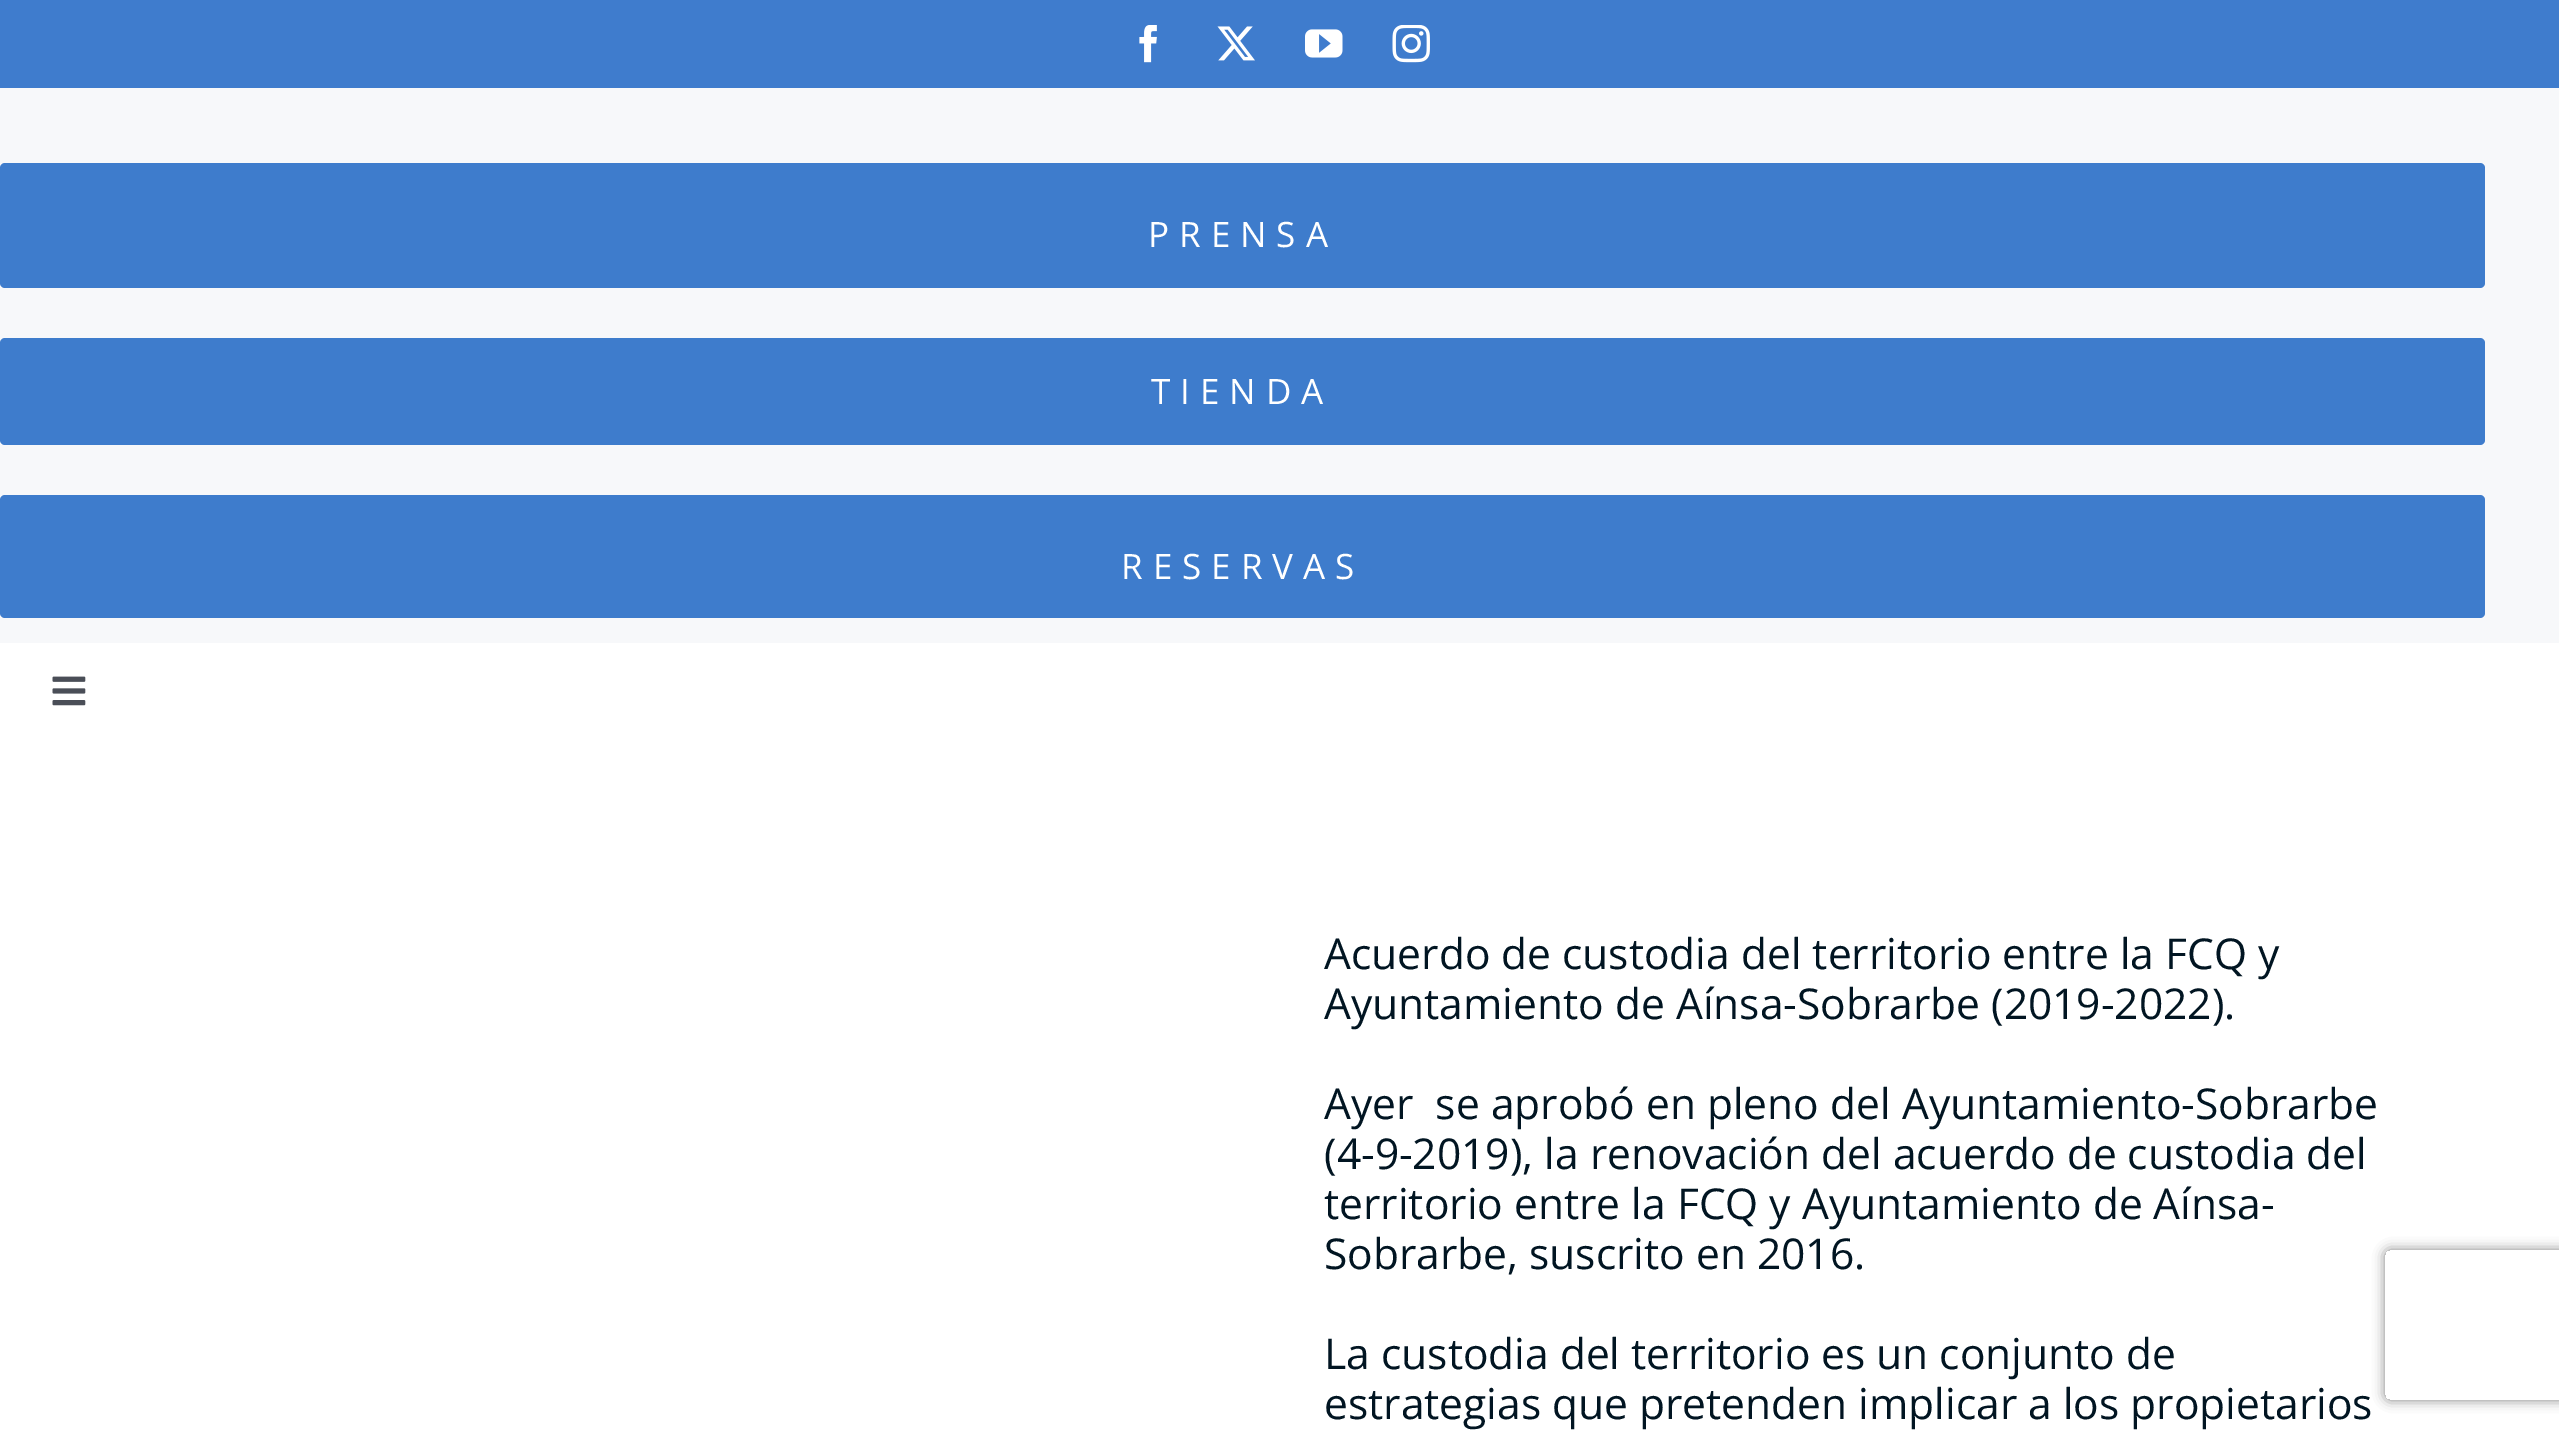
%!PS
<< /PageSize [2559 1433] /PageUsesTransparency true >> setpagedevice
/rgb { 3 { 255 div 3 1 roll } repeat setrgbcolor } def
/font { [ exch dup neg 0 0 3 -1 roll 0 0 ] selectfont } def
/alpha { dup .setfillconstantalpha .setstrokeconstantalpha } def
/roundrect { 5 dict begin { /r /h /w /y /x } { exch def } forall
  x r add y moveto x w add y 2 copy h add r arct x w add y h add x 1 index r arct
  x y h add x y r arct x y 2 copy exch w add exch r arct closepath end } def
/shadow { 12 dict begin { /a /b /q /h /w /y /x } { exch def } forall gsave /was 0 def
  9 -2 -9 { dup b mul 4 div /e exch def 1 sub .425 mul 2.718 exch exp 1 add a .99 .min exch div /now exch def
    1 1 now sub 1 was sub div sub alpha /was now def
    w h .min e 2 mul add 0 gt { x e sub y e sub w e 2 mul add h e 2 mul add
      q e add b .6 mul add w h .min 2 div e add .min 0 .max roundrect fill } if } for grestore end } def
/picture { 5 dict begin { /h /w /y /x /name } { exch def } forall
  gsave x y translate w h scale
  w h 8 [w 0 0 h 0 0] name (r) file false 3 colorimage grestore end } def
0 .pushpdf14devicefilter
0 1433 translate 1 -1 scale
4 setmiterlimit
255 255 255 rgb
0 0 2559 1433 rectfill
63 124 205 rgb
0 0 2559 88 rectfill
(img/1.rgb) 1139 25 18 38 picture
(img/2.rgb) 1217 26 38 35 picture
(img/3.rgb) 1305 29 38 29 picture
(img/4.rgb) 1392 25 38 38 picture
247 248 250 rgb
0 88 2559 555 rectfill
62 124 204 rgb
0 163 2485 125 5 roundrect fill
0 338 2485 107 5 roundrect fill
0 495 2485 123 5 roundrect fill
(img/5.rgb) 52 676 34 30 picture
gsave
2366 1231 moveto 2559 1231 lineto 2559 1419 lineto 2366 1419 lineto closepath 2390 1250 moveto 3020 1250 lineto 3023 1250 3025 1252 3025 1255 curveto 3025 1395 lineto 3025 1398 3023 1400 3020 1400 curveto 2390 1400 lineto 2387 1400 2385 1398 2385 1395 curveto 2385 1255 lineto 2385 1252 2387 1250 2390 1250 curveto closepath eoclip newpath
128 128 128 rgb
2385 1250 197 150 5 6 1 shadow
grestore
/OpenSans-Regular 35 font
255 255 255 rgb
1148 247 moveto 10 0 (PRENSA) ashow
1151 404 moveto 10 0 (TIENDA) ashow
1121 579 moveto 10 0 (RESERVAS) ashow
/OpenSans-Regular 42.5 font
1 21 34 rgb
[
  [(Acuerdo de custodia del territorio entre la FCQ y) 1324 969]
  [(Ayuntamiento de Aínsa-Sobrarbe \(2019-2022\).) 1324 1019]
  [(Ayer  se aprobó en pleno del Ayuntamiento-Sobrarbe) 1324 1119]
  [(\(4-9-2019\), la renovación del acuerdo de custodia del) 1324 1169]
  [(territorio entre la FCQ y Ayuntamiento de Aínsa-) 1324 1219]
  [(Sobrarbe, suscrito en 2016.) 1324 1269]
  [(La custodia del territorio es un conjunto de) 1324 1369]
  [(estrategias que pretenden implicar a los propietarios) 1324 1419]
] { aload pop moveto show } forall
.poppdf14devicefilter showpage
